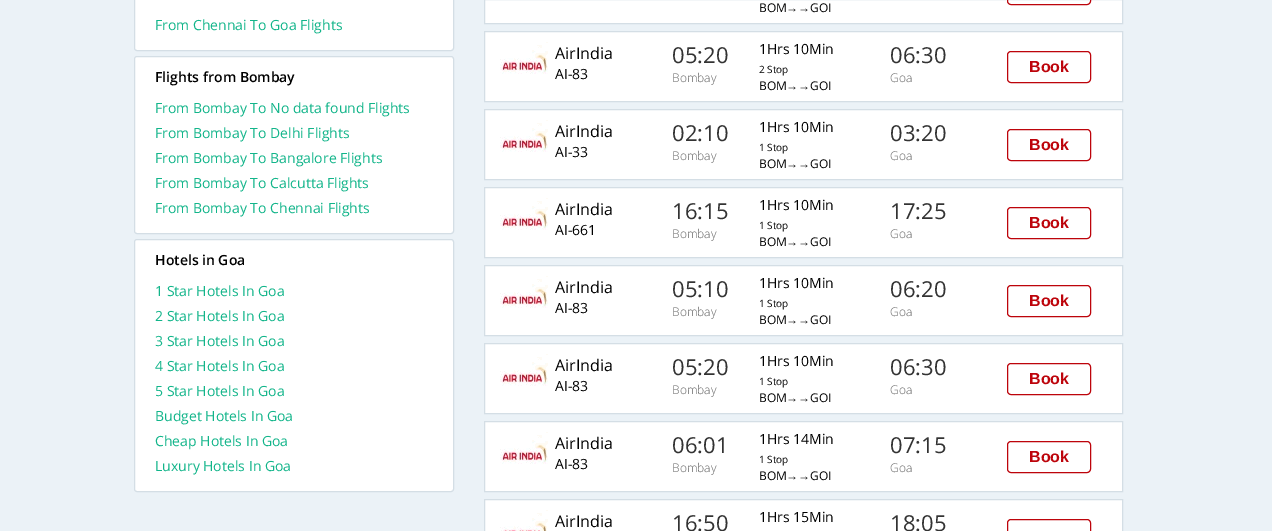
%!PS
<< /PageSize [1272 531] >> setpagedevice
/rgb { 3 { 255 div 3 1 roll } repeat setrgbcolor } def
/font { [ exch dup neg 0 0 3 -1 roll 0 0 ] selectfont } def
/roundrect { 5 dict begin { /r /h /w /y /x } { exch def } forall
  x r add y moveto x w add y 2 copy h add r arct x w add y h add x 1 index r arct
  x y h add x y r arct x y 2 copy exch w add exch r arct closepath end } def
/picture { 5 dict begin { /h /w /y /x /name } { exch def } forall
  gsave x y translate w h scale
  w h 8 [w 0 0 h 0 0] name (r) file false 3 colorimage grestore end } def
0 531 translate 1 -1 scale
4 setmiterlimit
235 242 247 rgb
0 0 1272 531 rectfill
255 255 255 rgb
134.5 -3.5 319 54 2.5 roundrect gsave fill grestore
212 222 229 rgb
stroke
255 255 255 rgb
134.5 56.5 319 177 2.5 roundrect gsave fill grestore
212 222 229 rgb
stroke
255 255 255 rgb
134.5 239.5 319 252 2.5 roundrect gsave fill grestore
212 222 229 rgb
stroke
255 255 255 rgb
484.5 -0.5 moveto 1122.5 -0.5 lineto 1122.5 23.5 lineto 484.5 23.5 lineto closepath gsave fill grestore
212 222 229 rgb
stroke
189 4 11 rgb
1007.5 -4.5 83 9 3.5 roundrect stroke
255 255 255 rgb
484.5 31.5 moveto 1122.5 31.5 lineto 1122.5 101.5 lineto 484.5 101.5 lineto closepath gsave fill grestore
212 222 229 rgb
stroke
(img/1.rgb) 500 42 48 32 picture
189 4 11 rgb
1007.5 51.5 83 31 3.5 roundrect stroke
255 255 255 rgb
484.5 109.5 moveto 1122.5 109.5 lineto 1122.5 179.5 lineto 484.5 179.5 lineto closepath gsave fill grestore
212 222 229 rgb
stroke
(img/1.rgb) 500 120 48 32 picture
189 4 11 rgb
1007.5 129.5 83 31 3.5 roundrect stroke
255 255 255 rgb
484.5 187.5 moveto 1122.5 187.5 lineto 1122.5 257.5 lineto 484.5 257.5 lineto closepath gsave fill grestore
212 222 229 rgb
stroke
(img/1.rgb) 500 198 48 32 picture
189 4 11 rgb
1007.5 207.5 83 31 3.5 roundrect stroke
255 255 255 rgb
484.5 265.5 moveto 1122.5 265.5 lineto 1122.5 335.5 lineto 484.5 335.5 lineto closepath gsave fill grestore
212 222 229 rgb
stroke
(img/1.rgb) 500 276 48 32 picture
189 4 11 rgb
1007.5 285.5 83 31 3.5 roundrect stroke
255 255 255 rgb
484.5 343.5 moveto 1122.5 343.5 lineto 1122.5 413.5 lineto 484.5 413.5 lineto closepath gsave fill grestore
212 222 229 rgb
stroke
(img/1.rgb) 500 354 48 32 picture
189 4 11 rgb
1007.5 363.5 83 31 3.5 roundrect stroke
255 255 255 rgb
484.5 421.5 moveto 1122.5 421.5 lineto 1122.5 491.5 lineto 484.5 491.5 lineto closepath gsave fill grestore
212 222 229 rgb
stroke
(img/1.rgb) 500 432 48 32 picture
189 4 11 rgb
1007.5 441.5 83 31 3.5 roundrect stroke
255 255 255 rgb
484.5 499.5 moveto 1122.5 499.5 lineto 1122.5 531.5 lineto 484.5 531.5 lineto closepath gsave fill grestore
212 222 229 rgb
stroke
(img/2.rgb) 500 510 48 21 picture
189 4 11 rgb
1007.5 519.5 83 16 3.5 roundrect stroke
/OpenSans-Regular 14 font
18 181 138 rgb
155 30 moveto (From Chennai To Goa Flights) show
/OpenSans-SemiBold 14 font
0 0 0 rgb
155 82 moveto (Flights from Bombay) show
/OpenSans-Regular 14 font
18 181 138 rgb
[
  [(From Bombay To No data found Flights) 155 113]
  [(From Bombay To Delhi Flights) 155 138]
  [(From Bombay To Bangalore Flights) 155 163]
  [(From Bombay To Calcutta Flights) 155 188]
  [(From Bombay To Chennai Flights) 155 213]
] { aload pop moveto show } forall
/OpenSans-SemiBold 14 font
0 0 0 rgb
155 265 moveto (Hotels in Goa) show
/OpenSans-Regular 14 font
18 181 138 rgb
[
  [(1 Star Hotels In Goa) 155 296]
  [(2 Star Hotels In Goa) 155 321]
  [(3 Star Hotels In Goa) 155 346]
  [(4 Star Hotels In Goa) 155 371]
  [(5 Star Hotels In Goa) 155 396]
  [(Budget Hotels In Goa) 155 421]
  [(Cheap Hotels In Goa) 155 446]
  [(Luxury Hotels In Goa) 155 471]
] { aload pop moveto show } forall
/OpenSans-Regular 12 font
0 0 0 rgb
759 12 moveto (BOM) show
/LiberationSans-Regular 12 font
786 12 moveto (→→) show
/OpenSans-Regular 12 font
810 12 moveto (GOI) show
/OpenSans-Regular 16 font
555 59 moveto (AirIndia) show
/OpenSans-Regular 14 font
555 79 moveto (AI-83) show
/OpenSans-Regular 22 font
51 51 51 rgb
672 63 moveto (05:20) show
/OpenSans-Light 12 font
102 102 102 rgb
672 82 moveto (Bombay) show
/OpenSans-Regular 14 font
0 0 0 rgb
759 54 moveto (1Hrs 10Min) show
/OpenSans-Regular 10 font
759 73 moveto (2 Stop) show
/OpenSans-Regular 12 font
759 90 moveto (BOM) show
/LiberationSans-Regular 12 font
786 90 moveto (→→) show
/OpenSans-Regular 12 font
810 90 moveto (GOI) show
/OpenSans-Regular 22 font
51 51 51 rgb
890 63 moveto (06:30) show
/OpenSans-Light 12 font
102 102 102 rgb
890 82 moveto (Goa) show
/LiberationSans-Bold 16 font
189 4 11 rgb
1029 72 moveto (Book) show
/OpenSans-Regular 16 font
0 0 0 rgb
555 137 moveto (AirIndia) show
/OpenSans-Regular 14 font
555 157 moveto (AI-33) show
/OpenSans-Regular 22 font
51 51 51 rgb
672 141 moveto (02:10) show
/OpenSans-Light 12 font
102 102 102 rgb
672 160 moveto (Bombay) show
/OpenSans-Regular 14 font
0 0 0 rgb
759 132 moveto (1Hrs 10Min) show
/OpenSans-Regular 10 font
759 151 moveto (1 Stop) show
/OpenSans-Regular 12 font
759 168 moveto (BOM) show
/LiberationSans-Regular 12 font
786 168 moveto (→→) show
/OpenSans-Regular 12 font
810 168 moveto (GOI) show
/OpenSans-Regular 22 font
51 51 51 rgb
890 141 moveto (03:20) show
/OpenSans-Light 12 font
102 102 102 rgb
890 160 moveto (Goa) show
/LiberationSans-Bold 16 font
189 4 11 rgb
1029 150 moveto (Book) show
/OpenSans-Regular 16 font
0 0 0 rgb
555 215 moveto (AirIndia) show
/OpenSans-Regular 14 font
555 235 moveto (AI-661) show
/OpenSans-Regular 22 font
51 51 51 rgb
672 219 moveto (16:15) show
/OpenSans-Light 12 font
102 102 102 rgb
672 238 moveto (Bombay) show
/OpenSans-Regular 14 font
0 0 0 rgb
759 210 moveto (1Hrs 10Min) show
/OpenSans-Regular 10 font
759 229 moveto (1 Stop) show
/OpenSans-Regular 12 font
759 246 moveto (BOM) show
/LiberationSans-Regular 12 font
786 246 moveto (→→) show
/OpenSans-Regular 12 font
810 246 moveto (GOI) show
/OpenSans-Regular 22 font
51 51 51 rgb
890 219 moveto (17:25) show
/OpenSans-Light 12 font
102 102 102 rgb
890 238 moveto (Goa) show
/LiberationSans-Bold 16 font
189 4 11 rgb
1029 228 moveto (Book) show
/OpenSans-Regular 16 font
0 0 0 rgb
555 293 moveto (AirIndia) show
/OpenSans-Regular 14 font
555 313 moveto (AI-83) show
/OpenSans-Regular 22 font
51 51 51 rgb
672 297 moveto (05:10) show
/OpenSans-Light 12 font
102 102 102 rgb
672 316 moveto (Bombay) show
/OpenSans-Regular 14 font
0 0 0 rgb
759 288 moveto (1Hrs 10Min) show
/OpenSans-Regular 10 font
759 307 moveto (1 Stop) show
/OpenSans-Regular 12 font
759 324 moveto (BOM) show
/LiberationSans-Regular 12 font
786 324 moveto (→→) show
/OpenSans-Regular 12 font
810 324 moveto (GOI) show
/OpenSans-Regular 22 font
51 51 51 rgb
890 297 moveto (06:20) show
/OpenSans-Light 12 font
102 102 102 rgb
890 316 moveto (Goa) show
/LiberationSans-Bold 16 font
189 4 11 rgb
1029 306 moveto (Book) show
/OpenSans-Regular 16 font
0 0 0 rgb
555 371 moveto (AirIndia) show
/OpenSans-Regular 14 font
555 391 moveto (AI-83) show
/OpenSans-Regular 22 font
51 51 51 rgb
672 375 moveto (05:20) show
/OpenSans-Light 12 font
102 102 102 rgb
672 394 moveto (Bombay) show
/OpenSans-Regular 14 font
0 0 0 rgb
759 366 moveto (1Hrs 10Min) show
/OpenSans-Regular 10 font
759 385 moveto (1 Stop) show
/OpenSans-Regular 12 font
759 402 moveto (BOM) show
/LiberationSans-Regular 12 font
786 402 moveto (→→) show
/OpenSans-Regular 12 font
810 402 moveto (GOI) show
/OpenSans-Regular 22 font
51 51 51 rgb
890 375 moveto (06:30) show
/OpenSans-Light 12 font
102 102 102 rgb
890 394 moveto (Goa) show
/LiberationSans-Bold 16 font
189 4 11 rgb
1029 384 moveto (Book) show
/OpenSans-Regular 16 font
0 0 0 rgb
555 449 moveto (AirIndia) show
/OpenSans-Regular 14 font
555 469 moveto (AI-83) show
/OpenSans-Regular 22 font
51 51 51 rgb
672 453 moveto (06:01) show
/OpenSans-Light 12 font
102 102 102 rgb
672 472 moveto (Bombay) show
/OpenSans-Regular 14 font
0 0 0 rgb
759 444 moveto (1Hrs 14Min) show
/OpenSans-Regular 10 font
759 463 moveto (1 Stop) show
/OpenSans-Regular 12 font
759 480 moveto (BOM) show
/LiberationSans-Regular 12 font
786 480 moveto (→→) show
/OpenSans-Regular 12 font
810 480 moveto (GOI) show
/OpenSans-Regular 22 font
51 51 51 rgb
890 453 moveto (07:15) show
/OpenSans-Light 12 font
102 102 102 rgb
890 472 moveto (Goa) show
/LiberationSans-Bold 16 font
189 4 11 rgb
1029 462 moveto (Book) show
/OpenSans-Regular 16 font
0 0 0 rgb
555 527 moveto (AirIndia) show
/OpenSans-Regular 22 font
51 51 51 rgb
672 531 moveto (16:50) show
/OpenSans-Regular 14 font
0 0 0 rgb
759 522 moveto (1Hrs 15Min) show
/OpenSans-Regular 22 font
51 51 51 rgb
890 531 moveto (18:05) show
showpage
